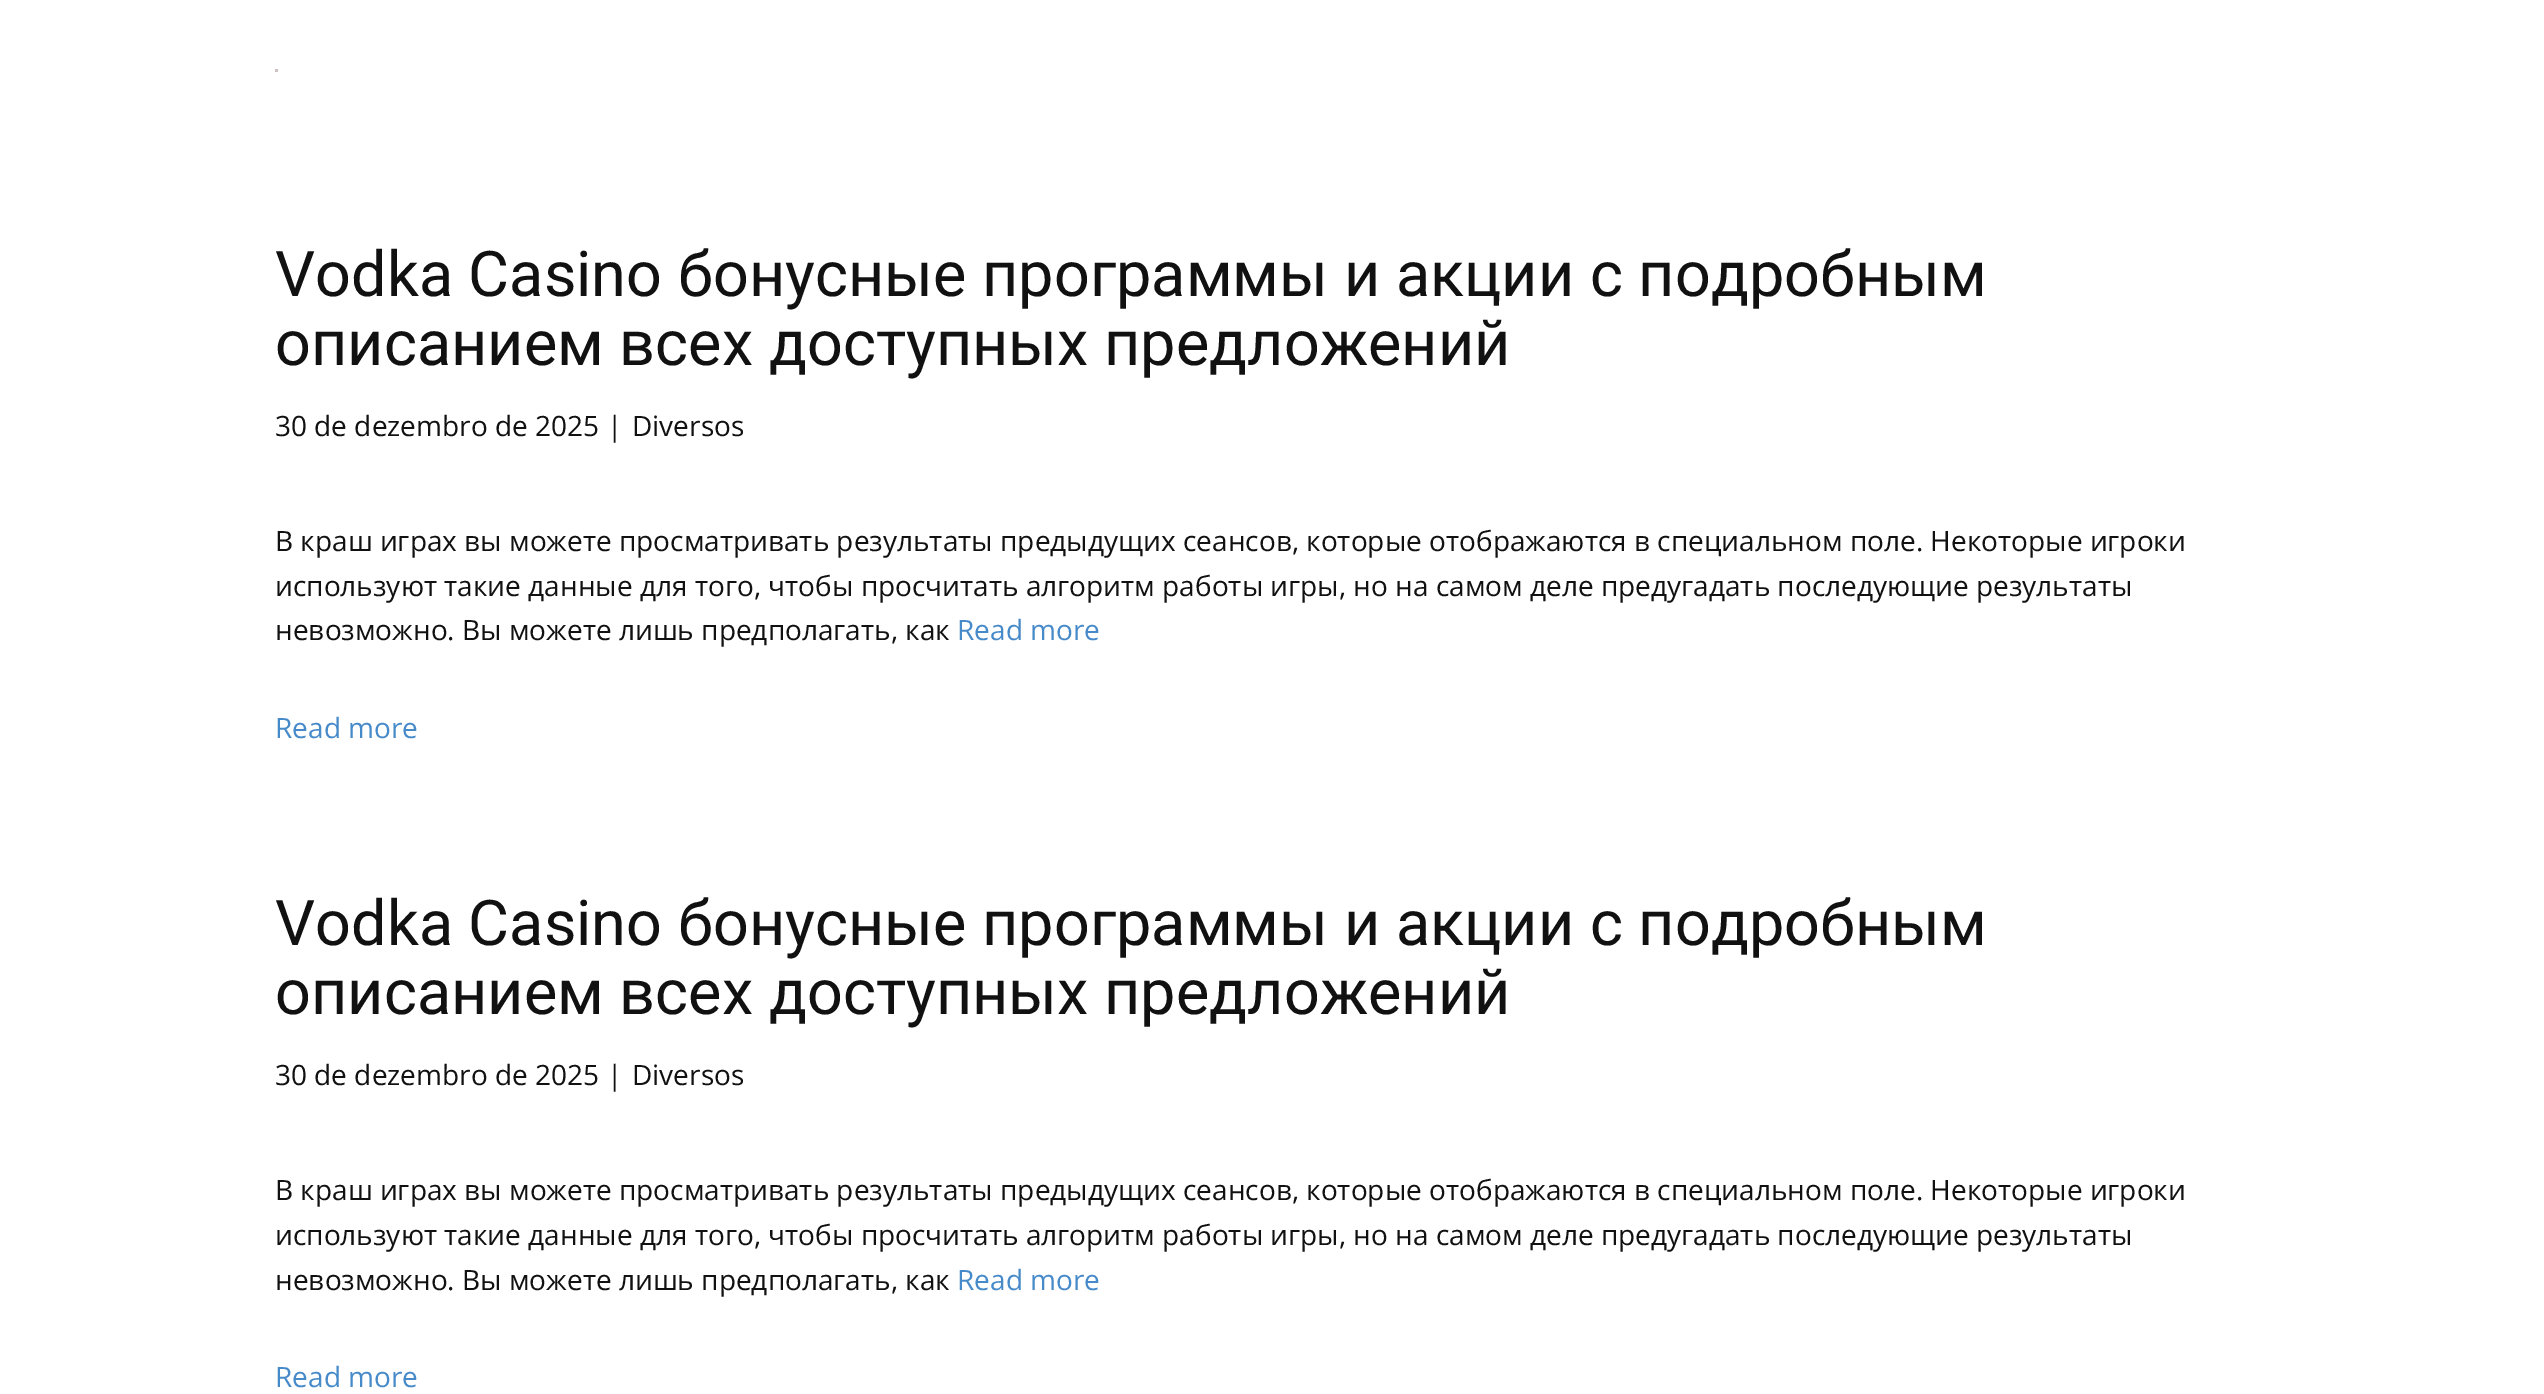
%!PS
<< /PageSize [2544 1394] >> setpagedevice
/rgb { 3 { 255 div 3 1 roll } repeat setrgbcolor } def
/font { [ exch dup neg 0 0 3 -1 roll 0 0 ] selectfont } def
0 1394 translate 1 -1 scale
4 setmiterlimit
255 255 255 rgb
0 0 2544 1394 rectfill
206 194 194 rgb
275 69 3 1 rectfill
275 70 3 2 rectfill
/Roboto-Regular 63 font
17 17 17 rgb
275 296 moveto (Vodka Casino бонусные программы и акции с подробным) show
275 365 moveto (описанием всех доступных предложений) show
/OpenSans-Regular 28 font
[
  [(30 de dezembro de 2025) 275 436]
  [(|) 607 436]
  [(Diversos) 632 436]
  [(В краш играх вы можете просматривать результаты предыдущих сеансов, которые отображаются в специальном поле. Некоторые игроки) 275 551]
  [(используют такие данные для того, чтобы просчитать алгоритм работы игры, но на самом деле предугадать последующие результаты) 275 596]
  [(невозможно. Вы можете лишь предполагать, как) 275 640]
] { aload pop moveto show } forall
71 138 201 rgb
957 640 moveto (Read more) show
275 738 moveto (Read more) show
/Roboto-Regular 63 font
17 17 17 rgb
275 945 moveto (Vodka Casino бонусные программы и акции с подробным) show
275 1014 moveto (описанием всех доступных предложений) show
/OpenSans-Regular 28 font
[
  [(30 de dezembro de 2025) 275 1085]
  [(|) 607 1085]
  [(Diversos) 632 1085]
  [(В краш играх вы можете просматривать результаты предыдущих сеансов, которые отображаются в специальном поле. Некоторые игроки) 275 1200]
  [(используют такие данные для того, чтобы просчитать алгоритм работы игры, но на самом деле предугадать последующие результаты) 275 1245]
  [(невозможно. Вы можете лишь предполагать, как) 275 1290]
] { aload pop moveto show } forall
71 138 201 rgb
957 1290 moveto (Read more) show
275 1387 moveto (Read more) show
showpage
